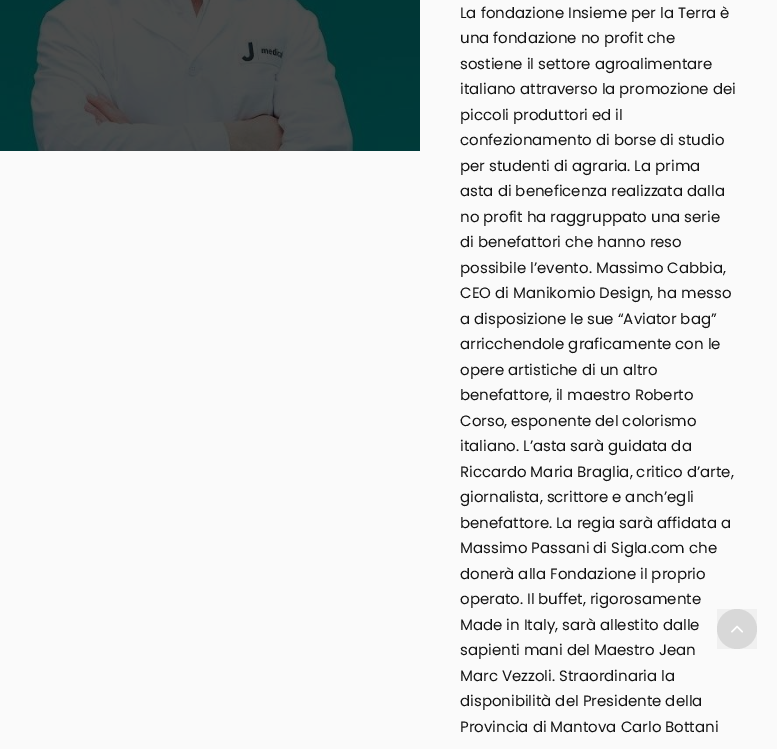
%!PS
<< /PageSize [777 749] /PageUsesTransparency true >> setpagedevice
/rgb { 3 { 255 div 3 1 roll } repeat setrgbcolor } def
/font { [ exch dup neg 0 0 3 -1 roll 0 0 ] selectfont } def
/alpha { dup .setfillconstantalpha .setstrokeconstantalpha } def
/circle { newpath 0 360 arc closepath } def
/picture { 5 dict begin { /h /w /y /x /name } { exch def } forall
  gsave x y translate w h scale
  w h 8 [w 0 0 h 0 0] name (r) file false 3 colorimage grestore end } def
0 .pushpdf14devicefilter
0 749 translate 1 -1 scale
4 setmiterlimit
250 250 250 rgb
0 0 777 749 rectfill
(img/1.rgb) 0 0 420 151 picture
225 225 225 rgb
737 629 20 circle fill
0.04 alpha
0 0 0 rgb
717 609 40 40 rectfill
1 alpha
(img/2.rgb) 731 625 12 8 picture
/Poppins-Regular 15 font
20 20 20 rgb
[
  [(La fondazione Insieme per la Terra è) 460 18]
  [(una fondazione no profit che) 460 43]
  [(sostiene il settore agroalimentare) 460 69]
  [(italiano attraverso la promozione dei) 460 94]
  [(piccoli produttori ed il) 460 120]
  [(confezionamento di borse di studio) 460 145]
  [(per studenti di agraria. La prima) 460 171]
  [(asta di beneficenza realizzata dalla) 460 196]
  [(no profit ha raggruppato una serie) 460 222]
  [(di benefattori che hanno reso) 460 247]
  [(possibile l’evento. Massimo Cabbia,) 460 273]
  [(CEO di Manikomio Design, ha messo) 460 298]
  [(a disposizione le sue “Aviator bag”) 460 324]
  [(arricchendole graficamente con le) 460 349]
  [(opere artistiche di un altro) 460 375]
  [(benefattore, il maestro Roberto) 460 400]
  [(Corso, esponente del colorismo) 460 426]
  [(italiano. L’asta sarà guidata da) 460 451]
  [(Riccardo Maria Braglia, critico d’arte,) 460 477]
  [(giornalista, scrittore e anch’egli) 460 502]
  [(benefattore. La regia sarà affidata a) 460 528]
  [(Massimo Passani di Sigla.com che) 460 553]
  [(donerà alla Fondazione il proprio) 460 579]
  [(operato. Il buffet, rigorosamente) 460 604]
  [(Made in Italy, sarà allestito dalle) 460 630]
  [(sapienti mani del Maestro Jean) 460 655]
  [(Marc Vezzoli. Straordinaria la) 460 681]
  [(disponibilità del Presidente della) 460 706]
  [(Provincia di Mantova Carlo Bottani) 460 732]
] { aload pop moveto show } forall
.poppdf14devicefilter showpage
